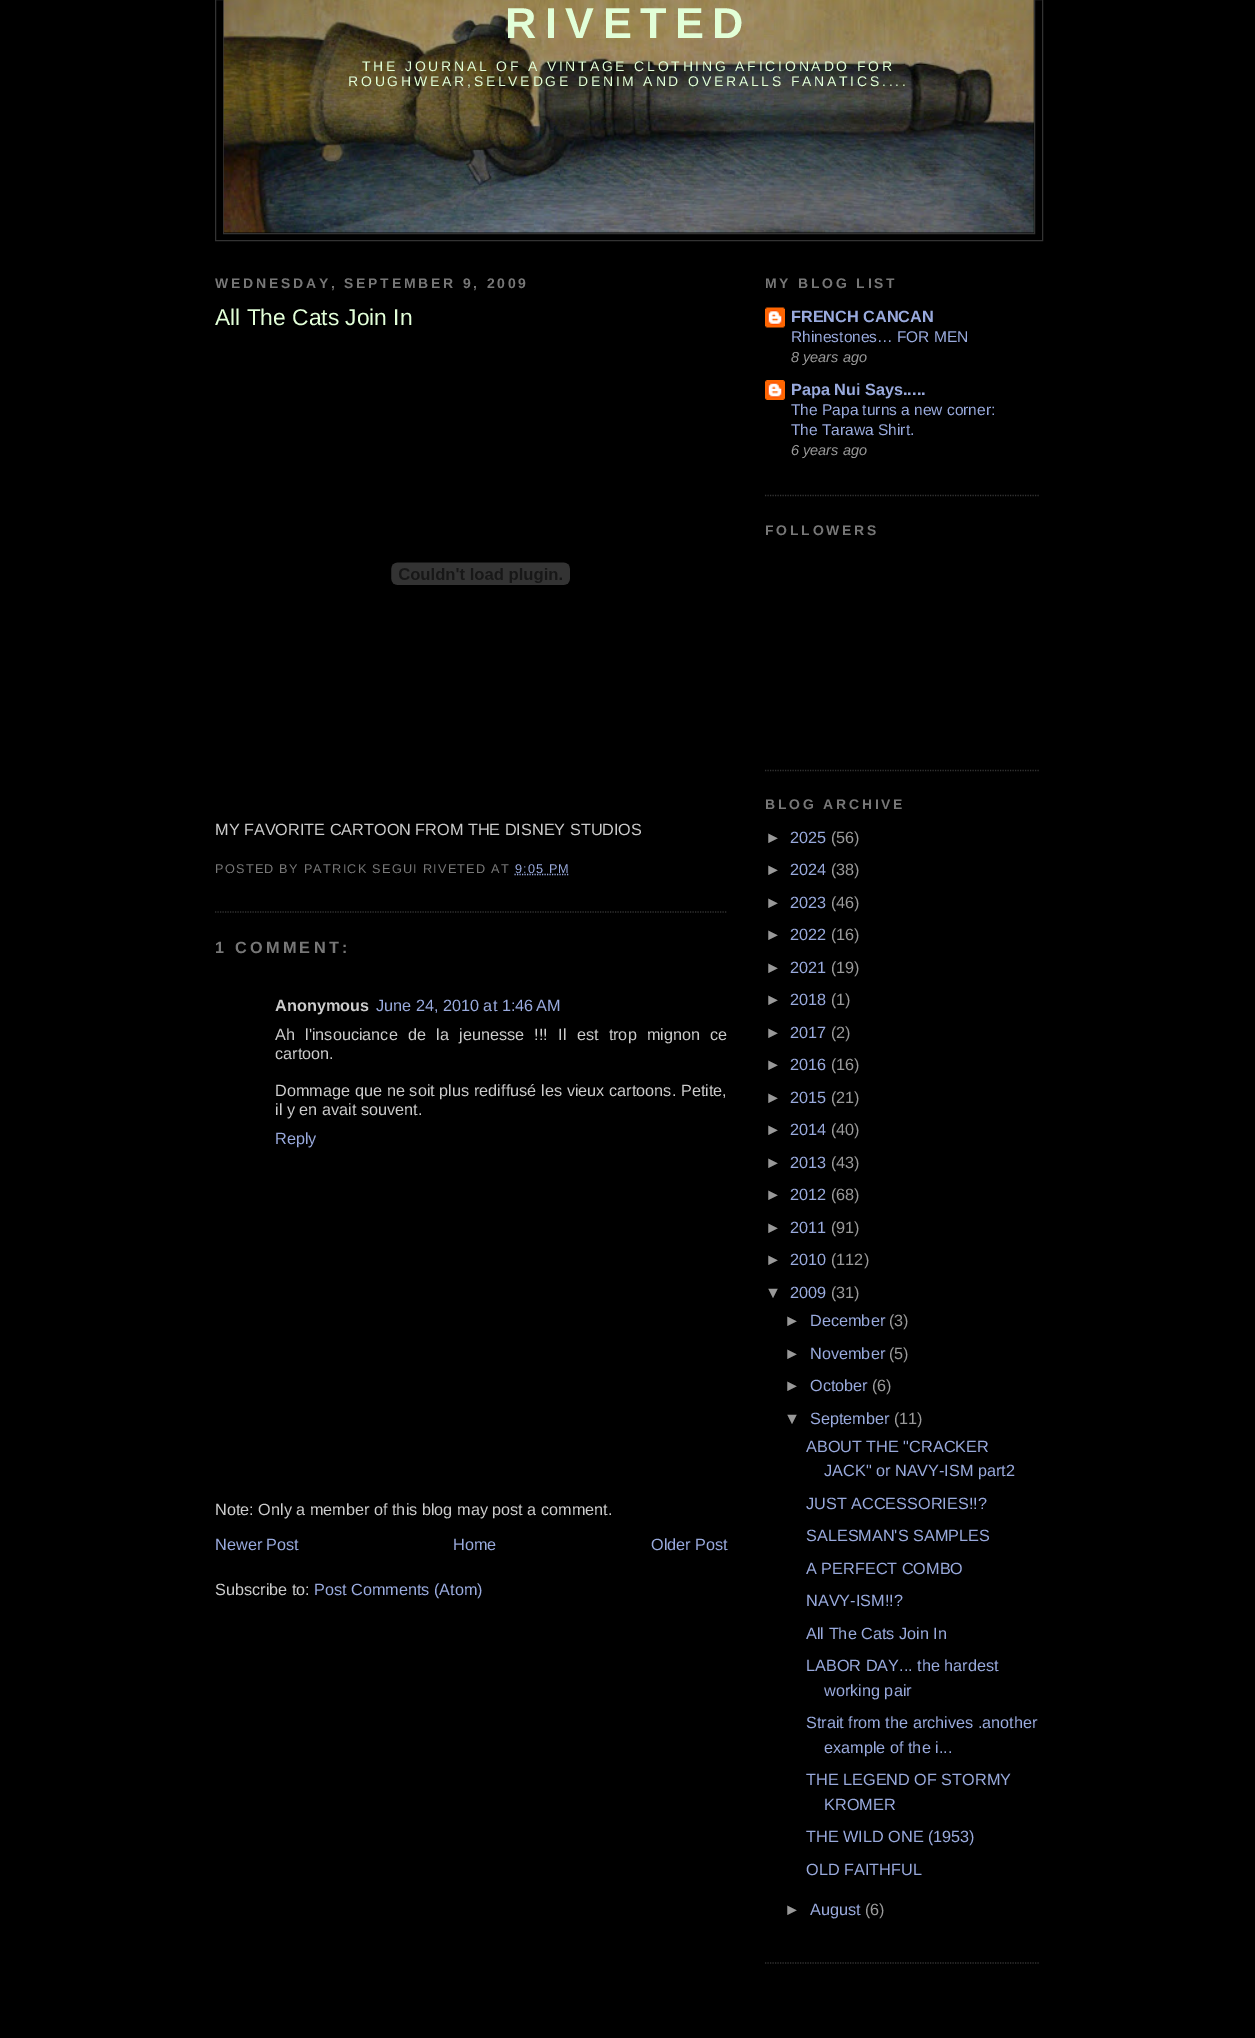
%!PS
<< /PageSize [1255 2038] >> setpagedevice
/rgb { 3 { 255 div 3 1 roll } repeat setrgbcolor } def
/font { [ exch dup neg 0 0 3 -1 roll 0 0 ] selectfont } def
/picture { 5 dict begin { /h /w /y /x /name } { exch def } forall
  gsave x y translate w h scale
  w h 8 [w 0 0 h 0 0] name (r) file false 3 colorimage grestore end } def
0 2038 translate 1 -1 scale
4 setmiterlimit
0 0 0 rgb
0 0 1255 2038 rectfill
51 51 51 rgb
215.5 -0.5 827 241 rectstroke
223.5 -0.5 811 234 rectstroke
(img/1.rgb) 223 0 811 233 picture
1.2 setlinewidth
[1.25 1.25] 0 setdash
215 912 moveto 727.5 912 lineto stroke
(img/2.rgb) 391 562 179 23 picture
153 170 221 rgb
514.5 874.5 moveto 569.5 874.5 lineto stroke
51 51 51 rgb
765 495.5 moveto 1040 495.5 lineto stroke
(img/3.rgb) 765 307 20 21 picture
(img/4.rgb) 765 380 20 20 picture
765 770.5 moveto 1040 770.5 lineto stroke
765 1963 moveto 1040 1963 lineto stroke
/LiberationSans-Bold 43.25 font
226 255 216 rgb
505 38 moveto 8.5 0 (RIVETED) ashow
/LiberationSans-Regular 13.95 font
362 71 moveto 2.8 0 (THE JOURNAL OF A VINTAGE CLOTHING AFICIONADO FOR) ashow
348 86 moveto 2.8 0 (ROUGHWEAR,SELVEDGE DENIM AND OVERALLS FANATICS....) ashow
/LiberationSans-Bold 13.95 font
119 119 119 rgb
215 288 moveto 2.8 0 (WEDNESDAY, SEPTEMBER 9, 2009) ashow
/LiberationSans-Regular 22.75 font
226 255 216 rgb
215 325 moveto (All The Cats Join In) show
/LiberationSans-Regular 16.25 font
204 204 204 rgb
215 835 moveto (MY FAVORITE CARTOON FROM THE DISNEY STUDIOS) show
/LiberationSans-Regular 12.7 font
119 119 119 rgb
215 873 moveto 1.25 0 (POSTED BY PATRICK SEGUI RIVETED AT) ashow
153 170 221 rgb
515 873 moveto 1.25 0 (9:05 PM) ashow
/LiberationSans-Bold 16.25 font
119 119 119 rgb
215 953 moveto 3.25 0 (1 COMMENT:) ashow
204 204 204 rgb
275 1011 moveto (Anonymous) show
/LiberationSans-Regular 16.25 font
153 170 221 rgb
376 1011 moveto (June 24, 2010 at 1:46 AM) show
204 204 204 rgb
275 1040 moveto 5.75 0 32 (Ah l'insouciance de la jeunesse !!! Il est trop mignon ce) widthshow
275 1059 moveto (cartoon.) show
275 1096 moveto 0.25 0 32 (Dommage que ne soit plus rediffusé les vieux cartoons. Petite,) widthshow
275 1115 moveto (il y en avait souvent.) show
153 170 221 rgb
275 1144 moveto (Reply) show
204 204 204 rgb
215 1515 moveto (Note: Only a member of this blog may post a comment.) show
153 170 221 rgb
[
  [(Newer Post) 215 1550]
  [(Home) 453 1550]
  [(Older Post) 651 1550]
] { aload pop moveto show } forall
204 204 204 rgb
215 1595 moveto (Subscribe to:) show
153 170 221 rgb
314 1595 moveto (Post Comments \(Atom\)) show
/LiberationSans-Bold 13.95 font
119 119 119 rgb
765 288 moveto 2.8 0 (MY BLOG LIST) ashow
/LiberationSans-Bold 16.25 font
153 170 221 rgb
791 322 moveto (FRENCH CANCAN) show
/LiberationSans-Regular 15.5 font
791 342 moveto (Rhinestones… FOR MEN) show
/LiberationSans-Italic 14.5 font
153 153 153 rgb
791 362 moveto (8 years ago) show
/LiberationSans-Bold 16.25 font
153 170 221 rgb
791 395 moveto (Papa Nui Says.....) show
/LiberationSans-Regular 15.5 font
791 415 moveto (The Papa turns a new corner:) show
791 435 moveto (The Tarawa Shirt.) show
/LiberationSans-Italic 14.5 font
153 153 153 rgb
791 455 moveto (6 years ago) show
/LiberationSans-Bold 13.95 font
119 119 119 rgb
765 535 moveto 2.8 0 (FOLLOWERS) ashow
765 809 moveto 2.8 0 (BLOG ARCHIVE) ashow
/LiberationSans-Regular 16.25 font
153 153 153 rgb
765 843 moveto (►) show
153 170 221 rgb
790 843 moveto (2025) show
153 153 153 rgb
831 843 moveto (\(56\)) show
765 875 moveto (►) show
153 170 221 rgb
790 875 moveto (2024) show
153 153 153 rgb
831 875 moveto (\(38\)) show
765 908 moveto (►) show
153 170 221 rgb
790 908 moveto (2023) show
153 153 153 rgb
831 908 moveto (\(46\)) show
765 940 moveto (►) show
153 170 221 rgb
790 940 moveto (2022) show
153 153 153 rgb
831 940 moveto (\(16\)) show
765 973 moveto (►) show
153 170 221 rgb
790 973 moveto (2021) show
153 153 153 rgb
831 973 moveto (\(19\)) show
765 1005 moveto (►) show
153 170 221 rgb
790 1005 moveto (2018) show
153 153 153 rgb
831 1005 moveto (\(1\)) show
765 1038 moveto (►) show
153 170 221 rgb
790 1038 moveto (2017) show
153 153 153 rgb
831 1038 moveto (\(2\)) show
765 1070 moveto (►) show
153 170 221 rgb
790 1070 moveto (2016) show
153 153 153 rgb
831 1070 moveto (\(16\)) show
765 1103 moveto (►) show
153 170 221 rgb
790 1103 moveto (2015) show
153 153 153 rgb
831 1103 moveto (\(21\)) show
765 1135 moveto (►) show
153 170 221 rgb
790 1135 moveto (2014) show
153 153 153 rgb
831 1135 moveto (\(40\)) show
765 1168 moveto (►) show
153 170 221 rgb
790 1168 moveto (2013) show
153 153 153 rgb
831 1168 moveto (\(43\)) show
765 1200 moveto (►) show
153 170 221 rgb
790 1200 moveto (2012) show
153 153 153 rgb
831 1200 moveto (\(68\)) show
765 1233 moveto (►) show
153 170 221 rgb
790 1233 moveto (2011) show
153 153 153 rgb
831 1233 moveto (\(91\)) show
765 1265 moveto (►) show
153 170 221 rgb
790 1265 moveto (2010) show
153 153 153 rgb
831 1265 moveto (\(112\)) show
765 1298 moveto (▼) show
153 170 221 rgb
790 1298 moveto (2009) show
153 153 153 rgb
831 1298 moveto (\(31\)) show
784 1326 moveto (►) show
153 170 221 rgb
810 1326 moveto (December) show
153 153 153 rgb
889 1326 moveto (\(3\)) show
784 1359 moveto (►) show
153 170 221 rgb
810 1359 moveto (November) show
153 153 153 rgb
889 1359 moveto (\(5\)) show
784 1391 moveto (►) show
153 170 221 rgb
810 1391 moveto (October) show
153 153 153 rgb
872 1391 moveto (\(6\)) show
784 1424 moveto (▼) show
153 170 221 rgb
810 1424 moveto (September) show
153 153 153 rgb
894 1424 moveto (\(11\)) show
153 170 221 rgb
[
  [(ABOUT THE "CRACKER) 806 1452]
  [(JACK" or NAVY-ISM part2) 824 1476]
  [(JUST ACCESSORIES!!?) 806 1509]
  [(SALESMAN'S SAMPLES) 806 1541]
  [(A PERFECT COMBO) 806 1574]
  [(NAVY-ISM!!?) 806 1606]
  [(All The Cats Join In) 806 1639]
  [(LABOR DAY... the hardest) 806 1671]
  [(working pair) 824 1696]
  [(Strait from the archives .another) 806 1728]
  [(example of the i...) 824 1753]
  [(THE LEGEND OF STORMY) 806 1785]
  [(KROMER) 824 1810]
  [(THE WILD ONE \(1953\)) 806 1842]
  [(OLD FAITHFUL) 806 1875]
] { aload pop moveto show } forall
153 153 153 rgb
784 1915 moveto (►) show
153 170 221 rgb
810 1915 moveto (August) show
153 153 153 rgb
865 1915 moveto (\(6\)) show
showpage
